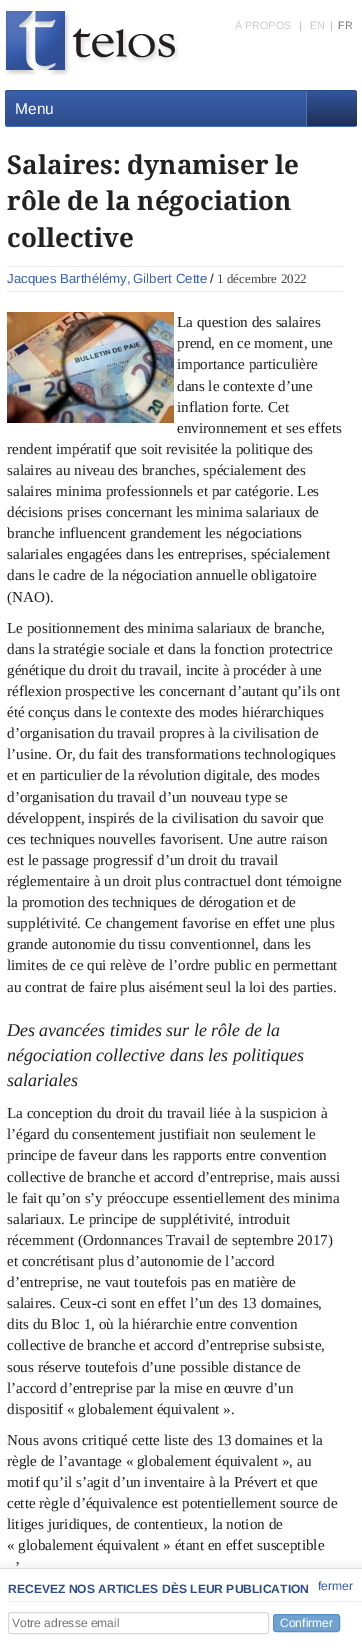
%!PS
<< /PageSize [362 1649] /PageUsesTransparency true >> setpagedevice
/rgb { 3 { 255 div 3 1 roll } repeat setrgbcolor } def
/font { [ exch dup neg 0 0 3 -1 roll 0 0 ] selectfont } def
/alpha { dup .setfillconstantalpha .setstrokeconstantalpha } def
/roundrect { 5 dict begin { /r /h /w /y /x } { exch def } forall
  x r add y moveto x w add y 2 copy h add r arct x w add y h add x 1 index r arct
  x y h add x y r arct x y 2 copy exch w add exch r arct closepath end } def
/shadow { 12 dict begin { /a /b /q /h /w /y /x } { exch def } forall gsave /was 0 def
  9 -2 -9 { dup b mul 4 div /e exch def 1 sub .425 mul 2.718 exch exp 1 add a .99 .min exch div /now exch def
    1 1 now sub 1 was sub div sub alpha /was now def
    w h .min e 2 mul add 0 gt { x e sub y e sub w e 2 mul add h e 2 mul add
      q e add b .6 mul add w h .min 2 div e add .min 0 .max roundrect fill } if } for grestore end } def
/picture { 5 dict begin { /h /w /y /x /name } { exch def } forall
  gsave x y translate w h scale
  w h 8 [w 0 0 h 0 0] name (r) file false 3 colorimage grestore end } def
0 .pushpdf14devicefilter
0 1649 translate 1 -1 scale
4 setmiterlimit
255 255 255 rgb
0 0 362 1649 rectfill
gsave
5 90 352 37 3 roundrect clip newpath
gsave 5 91 moveto 357 91 lineto 357 126 lineto 5 126 lineto closepath clip newpath
<< /ShadingType 2 /ColorSpace /DeviceRGB /Coords [181 91 181 126] /Extend [true true] /Function << /FunctionType 2 /Domain [0 1] /C0 [0.227 0.373 0.675] /C1 [0.18 0.298 0.541] /N 1 >> >> shfill grestore
grestore
46 76 138 rgb
8 90 moveto 6 90 5 91 5 93 curveto 5 92 6 91 8 91 curveto 354 91 lineto 356 91 357 92 357 93 curveto 357 91 356 90 354 90 curveto closepath fill
67 107 191 rgb
354 127 moveto 356 127 357 126 357 124 curveto 357 125 356 126 354 126 curveto 8 126 lineto 6 126 5 125 5 124 curveto 5 126 6 127 8 127 curveto closepath fill
gsave 306 91 moveto 354 91 lineto 355.5 91 357 92.5 357 94 curveto 357 123 lineto 357 124.5 355.5 126 354 126 curveto 306 126 lineto closepath clip newpath
<< /ShadingType 2 /ColorSpace /DeviceRGB /Coords [332 91 332 126] /Extend [true true] /Function << /FunctionType 2 /Domain [0 1] /C0 [0.204 0.333 0.608] /C1 [0.114 0.184 0.337] /N 1 >> >> shfill grestore
[
  [306 91 1 35 86 114 172]
  [7 266 337 1 233 235 243]
  [7 291 337 1 233 235 243]
] { aload pop rgb rectfill } forall
(img/1.rgb) 7 312 167 111 picture
(img/2.rgb) 5 11 174 65 picture
150 150 150 rgb
0 1563 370 81 0 2.5 0.1 shadow
[
  [0 1569 362 77 255 255 255]
  [0 1568 362 1 221 221 221]
  [8 1601 354 1 239 239 239]
] { aload pop rgb rectfill } forall
217 217 217 rgb
8.5 1612.5 260 21 2.5 roundrect stroke
111 162 209 rgb
273.5 1614.5 66 17 2.5 roundrect gsave fill grestore
85 145 201 rgb
stroke
/LiberationSans-Regular 10.75 font
204 204 204 rgb
235 29 moveto (À PROPOS) show
165 175 198 rgb
299 29 moveto (|) show
204 204 204 rgb
310 29 moveto (EN) show
165 175 198 rgb
330 29 moveto (|) show
117 127 150 rgb
338 29 moveto (FR) show
/LiberationSans-Regular 15.5 font
255 255 255 rgb
15 114 moveto (Menu) show
/DroidSerif-Bold 26 font
34 34 34 rgb
[
  [(Salaires: dynamiser le) 7 174]
  [(rôle de la négociation) 7 210]
  [(collective) 7 247]
] { aload pop moveto show } forall
/LiberationSans-Regular 13.25 font
58 95 172 rgb
7 283 moveto (Jacques Barthélémy,) show
133 283 moveto (Gilbert Cette) show
34 34 34 rgb
210 283 moveto (/) show
/LiberationSerif-Regular 13 font
68 68 68 rgb
217 283 moveto (1 décembre 2022) show
/LiberationSerif-Regular 15.1 font
34 34 34 rgb
[
  [(La question des salaires) 177 327]
  [(prend, en ce moment, une) 177 348]
  [(importance particulière) 177 369]
  [(dans le contexte d’une) 177 391]
  [(inflation forte. Cet) 177 412]
  [(environnement et ses effets) 177 433]
  [(rendent impératif que soit revisitée la politique des) 7 454]
  [(salaires au niveau des branches, spécialement des) 7 475]
  [(salaires minima professionnels et par catégorie. Les) 7 496]
  [(décisions prises concernant les minima salariaux de) 7 517]
  [(branche influencent grandement les négociations) 7 538]
  [(salariales engagées dans les entreprises, spécialement) 7 559]
  [(dans le cadre de la négociation annuelle obligatoire) 7 580]
  [(\(NAO\).) 7 602]
  [(Le positionnement des minima salariaux de branche,) 7 633]
  [(dans la stratégie sociale et dans la fonction protectrice) 7 654]
  [(génétique du droit du travail, incite à procéder à une) 7 675]
  [(réflexion prospective les concernant d’autant qu’ils ont) 7 696]
  [(été conçus dans le contexte des modes hiérarchiques) 7 717]
  [(d’organisation du travail propres à la civilisation de) 7 738]
  [(l’usine. Or, du fait des transformations technologiques) 7 759]
  [(et en particulier de la révolution digitale, des modes) 7 780]
  [(d’organisation du travail d’un nouveau type se) 7 802]
  [(développent, inspirés de la civilisation du savoir que) 7 823]
  [(ces techniques nouvelles favorisent. Une autre raison) 7 844]
  [(est le passage progressif d’un droit du travail) 7 865]
  [(réglementaire à un droit plus contractuel dont témoigne) 7 886]
  [(la promotion des techniques de dérogation et de) 7 907]
  [(supplétivité. Ce changement favorise en effet une plus) 7 928]
  [(grande autonomie du tissu conventionnel, dans les) 7 949]
  [(limites de ce qui relève de l’ordre public en permettant) 7 970]
  [(au contrat de faire plus aisément seul la loi des parties.) 7 992]
] { aload pop moveto show } forall
/LiberationSerif-Italic 18 font
[
  [(Des avancées timides sur le rôle de la) 7 1036]
  [(négociation collective dans les politiques) 7 1061]
  [(salariales) 7 1086]
] { aload pop moveto show } forall
/LiberationSerif-Regular 15.1 font
[
  [(La conception du droit du travail liée à la suspicion à) 7 1118]
  [(l’égard du consentement justifiait non seulement le) 7 1139]
  [(principe de faveur dans les rapports entre convention) 7 1160]
  [(collective de branche et accord d’entreprise, mais aussi) 7 1182]
  [(le fait qu’on s’y préoccupe essentiellement des minima) 7 1203]
  [(salariaux. Le principe de supplétivité, introduit) 7 1224]
  [(récemment \(Ordonnances Travail de septembre 2017\)) 7 1245]
  [(et concrétisant plus d’autonomie de l’accord) 7 1266]
  [(d’entreprise, ne vaut toutefois pas en matière de) 7 1287]
  [(salaires. Ceux-ci sont en effet l’un des 13 domaines,) 7 1308]
  [(dits du Bloc 1, où la hiérarchie entre convention) 7 1329]
  [(collective de branche et accord d’entreprise subsiste,) 7 1350]
  [(sous réserve toutefois d’une possible distance de) 7 1372]
  [(l’accord d’entreprise par la mise en œuvre d’un) 7 1393]
  [(dispositif « globalement équivalent ».) 7 1414]
  [(Nous avons critiqué cette liste des 13 domaines et la) 7 1445]
  [(règle de l’avantage « globalement équivalent », au) 7 1466]
  [(motif qu’il s’agit d’un inventaire à la Prévert et que) 7 1487]
  [(cette règle d’équivalence est potentiellement source de) 7 1508]
  [(litiges juridiques, de contentieux, la notion de) 7 1529]
  [(« globalement équivalent » étant en effet susceptible) 7 1550]
  [(’) 15 1572]
] { aload pop moveto show } forall
/LiberationSans-Bold 12.1 font
46 76 138 rgb
8 1593 moveto (RECEVEZ NOS ARTICLES DÈS LEUR PUBLICATION) show
/LiberationSans-Regular 12.1 font
58 95 172 rgb
318 1590 moveto (fermer) show
117 117 117 rgb
12 1627 moveto (Votre adresse email) show
255 255 255 rgb
280 1627 moveto (Confirmer) show
.poppdf14devicefilter showpage
